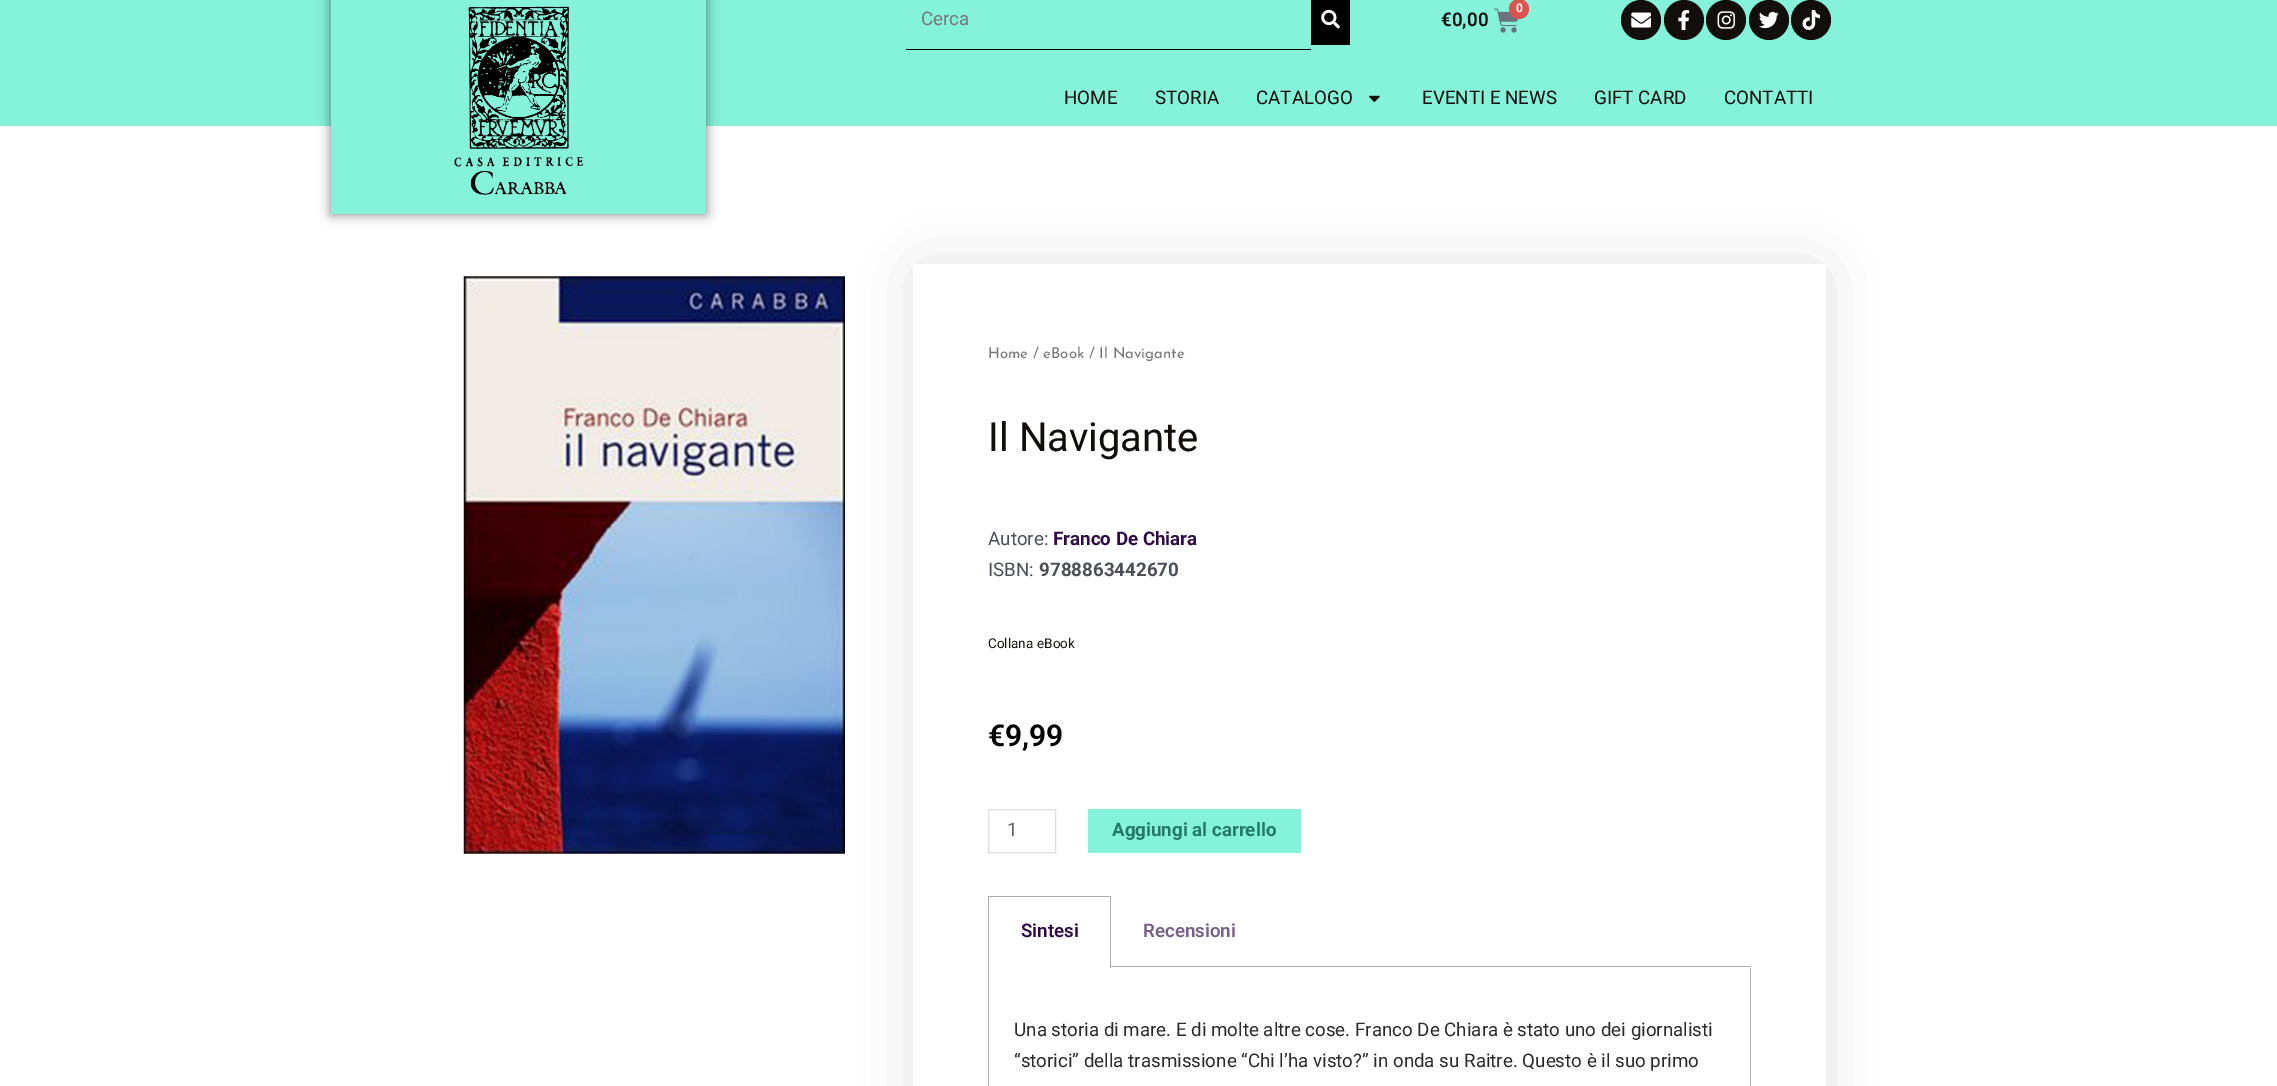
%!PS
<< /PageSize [2277 1086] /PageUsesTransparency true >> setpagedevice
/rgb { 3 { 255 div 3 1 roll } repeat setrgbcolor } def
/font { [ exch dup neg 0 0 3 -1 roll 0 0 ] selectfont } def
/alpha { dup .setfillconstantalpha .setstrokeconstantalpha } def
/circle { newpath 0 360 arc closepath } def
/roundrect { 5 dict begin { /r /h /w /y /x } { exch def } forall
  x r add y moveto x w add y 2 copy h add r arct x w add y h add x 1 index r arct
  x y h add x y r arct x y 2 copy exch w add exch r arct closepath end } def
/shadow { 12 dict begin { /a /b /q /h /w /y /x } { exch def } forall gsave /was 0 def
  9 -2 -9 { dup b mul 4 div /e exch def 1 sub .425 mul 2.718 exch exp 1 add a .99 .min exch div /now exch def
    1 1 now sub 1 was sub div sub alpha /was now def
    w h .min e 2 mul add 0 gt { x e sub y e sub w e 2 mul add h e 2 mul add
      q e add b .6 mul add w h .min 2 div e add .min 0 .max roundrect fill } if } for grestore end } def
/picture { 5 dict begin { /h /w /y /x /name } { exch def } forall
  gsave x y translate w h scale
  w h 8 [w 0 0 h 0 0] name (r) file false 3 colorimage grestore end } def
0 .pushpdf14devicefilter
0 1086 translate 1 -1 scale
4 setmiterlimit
255 255 255 rgb
0 0 2277 1086 rectfill
133 242 218 rgb
0 0 2277 126 rectfill
0 0 0 rgb
331 -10 375 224 0 6 0.5 shadow
133 242 218 rgb
331 0 375 214 rectfill
(img/1.rgb) 454 6 130 189 picture
0 0 0 rgb
906 49 405 1 rectfill
1311 0 39 45 rectfill
(img/2.rgb) 1321 9 19 20 picture
(img/3.rgb) 1494 8 25 25 picture
217 83 79 rgb
1519 9 10 circle fill
18 14 11 rgb
1641 20 20 circle fill
(img/4.rgb) 1631 12 20 16 picture
1684 20 20 circle fill
(img/5.rgb) 1678 10 12 20 picture
1726 20 20 circle fill
(img/6.rgb) 1717 11 18 18 picture
1769 20 20 circle fill
(img/7.rgb) 1759 11 20 18 picture
1811 20 20 circle fill
(img/8.rgb) 1802 10 18 20 picture
(img/9.rgb) 1369 95 11 7 picture
(img/10.rgb) 463 276 382 578 picture
gsave
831 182 moveto 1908 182 lineto 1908 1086 lineto 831 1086 lineto closepath 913 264 moveto 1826 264 lineto 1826 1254 lineto 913 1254 lineto closepath eoclip newpath
0 0 0 rgb
925 276 889 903 0 31 0.17 shadow
grestore
221 221 221 rgb
988.5 809.5 67 43 rectstroke
[
  [1088 809 213 44 133 242 218]
  [988 896 123 1 173 173 173]
  [1110 896 1 72 173 173 173]
  [988 896 1 72 173 173 173]
  [1110 966 641 1 173 173 173]
  [1750 968 1 118 173 173 173]
  [988 968 1 118 173 173 173]
] { aload pop rgb rectfill } forall
/Roboto-Regular 18.75 font
119 119 119 rgb
921 25 moveto (Cerca) show
/Roboto-SemiBold 12 font
255 255 255 rgb
1516 12 moveto (0) show
/Roboto-SemiBold 18.75 font
18 14 11 rgb
1441 26 moveto (€0,00) show
/Roboto-Regular 18.75 font
[
  [(HOME) 1064 104]
  [(STORIA) 1155 104]
  [(CATALOGO) 1256 104]
  [(EVENTI E NEWS) 1422 104]
  [(GIFT CARD) 1594 104]
  [(CONTATTI) 1724 104]
] { aload pop moveto show } forall
/JosefinSans-Regular 15 font
119 119 119 rgb
988 358 moveto (Home / eBook / Il Navigante) show
/Roboto-Regular 40 font
18 14 11 rgb
988 451 moveto (Il Navigante) show
/Roboto-Regular 18.75 font
75 79 88 rgb
988 545 moveto (Autore:) show
/Roboto-Bold 18.75 font
47 10 68 rgb
1053 545 moveto (Franco De Chiara) show
/Roboto-Regular 18.75 font
75 79 88 rgb
988 576 moveto (ISBN:) show
/Roboto-Bold 18.75 font
1039 576 moveto (9788863442670) show
/Roboto-Regular 13.5 font
18 14 11 rgb
988 648 moveto (Collana) show
24 22 19 rgb
1037 648 moveto (eBook) show
/Roboto-SemiBold 30 font
0 0 0 rgb
988 746 moveto (€9,99) show
/Roboto-Regular 18.75 font
102 102 102 rgb
1007 836 moveto (1) show
/Roboto-Bold 18.75 font
36 121 102 rgb
1112 836 moveto (Aggiungi al carrello) show
/Roboto-SemiBold 18.75 font
47 10 68 rgb
1021 937 moveto (Sintesi) show
120 96 134 rgb
1143 937 moveto (Recensioni) show
/Roboto-Regular 18.75 font
42 42 42 rgb
1014 1036 moveto (Una storia di mare. E di molte altre cose. Franco De Chiara è stato uno dei giornalisti) show
1014 1067 moveto (“storici” della trasmissione “Chi l’ha visto?” in onda su Raitre. Questo è il suo primo) show
.poppdf14devicefilter showpage
